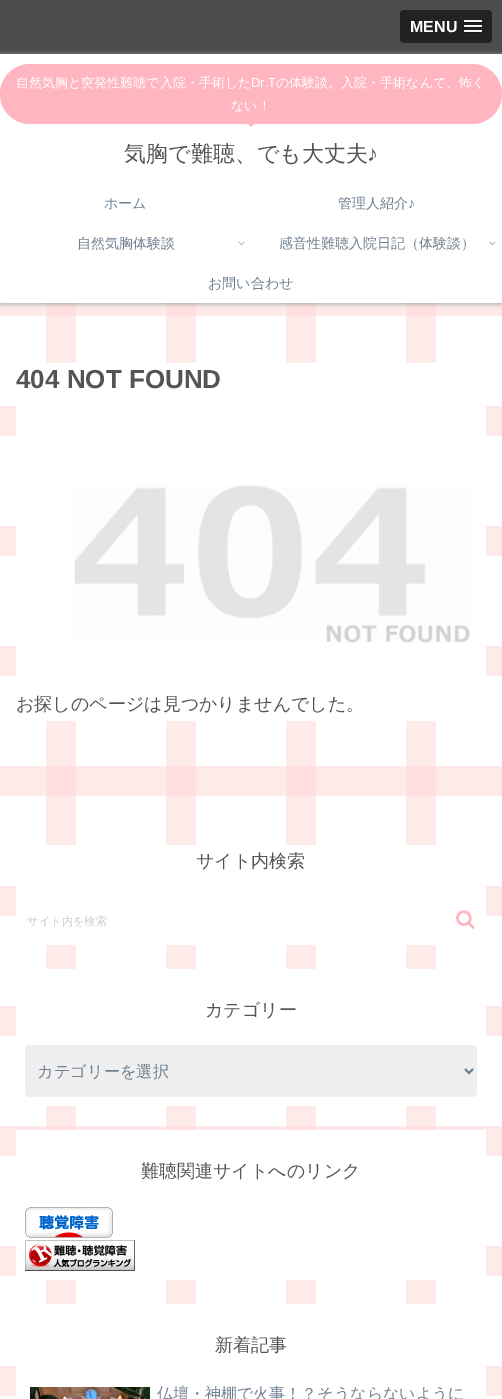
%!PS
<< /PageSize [502 1399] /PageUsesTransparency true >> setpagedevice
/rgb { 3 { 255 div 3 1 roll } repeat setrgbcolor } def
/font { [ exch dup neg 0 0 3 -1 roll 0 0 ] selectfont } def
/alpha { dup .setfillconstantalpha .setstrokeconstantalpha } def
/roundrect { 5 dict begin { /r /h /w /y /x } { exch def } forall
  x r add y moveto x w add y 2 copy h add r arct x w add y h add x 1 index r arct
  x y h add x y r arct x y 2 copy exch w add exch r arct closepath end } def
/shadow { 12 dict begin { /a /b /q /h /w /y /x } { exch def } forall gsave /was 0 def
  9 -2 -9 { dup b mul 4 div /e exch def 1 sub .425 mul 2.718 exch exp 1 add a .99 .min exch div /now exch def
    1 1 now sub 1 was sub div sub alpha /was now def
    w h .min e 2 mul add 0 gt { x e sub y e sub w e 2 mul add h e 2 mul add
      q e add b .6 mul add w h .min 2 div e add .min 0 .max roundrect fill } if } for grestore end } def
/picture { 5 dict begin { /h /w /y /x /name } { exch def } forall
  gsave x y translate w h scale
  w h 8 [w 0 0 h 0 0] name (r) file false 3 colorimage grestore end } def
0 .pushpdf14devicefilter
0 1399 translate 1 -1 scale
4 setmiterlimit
255 255 255 rgb
0 0 502 1399 rectfill
(img/1.rgb) 0 303 502 1096 picture
76 76 76 rgb
0 0 502 54 rectfill
34 34 34 rgb
400 10 92 33 4 roundrect fill
26 26 26 rgb
464 21.5 moveto 463 23.5 467.5 23 467.5 23 curveto 478.5 23 lineto 478.5 23 483 23.5 482 21.5 curveto 481 22.5 474.5 22 473 22 curveto 471.5 22 465 22.5 464 21.5 curveto closepath fill
245 245 245 rgb
464 20 18 2 1 roundrect fill
26 26 26 rgb
464 26.5 moveto 463 28.5 467.5 28 467.5 28 curveto 478.5 28 lineto 478.5 28 483 28.5 482 26.5 curveto 481 27.5 474.5 27 473 27 curveto 471.5 27 465 27.5 464 26.5 curveto closepath fill
245 245 245 rgb
464 25 18 2 1 roundrect fill
26 26 26 rgb
464 31.5 moveto 463 33.5 467.5 33 467.5 33 curveto 478.5 33 lineto 478.5 33 483 33.5 482 31.5 curveto 481 32.5 474.5 32 473 32 curveto 471.5 32 465 32.5 464 31.5 curveto closepath fill
245 245 245 rgb
464 30 18 2 1 roundrect fill
169 169 169 rgb
0 55 502 249 0 2.5 1 shadow
255 255 255 rgb
0 54 502 249 rectfill
255 182 193 rgb
0 64 502 60 30 roundrect fill
(img/2.rgb) 238 241 7 5 picture
(img/2.rgb) 489 241 7 5 picture
255 255 255 rgb
16 363 470 358 rectfill
(img/3.rgb) 74 485 396 158 picture
16 845 470 100 rectfill
(img/4.rgb) 456 910 19 19 picture
16 969 470 137 rectfill
239 239 239 rgb
25 1045 452 52 4 roundrect fill
112 128 144 rgb
2 setlinewidth
465 1069 moveto 469 1073 lineto 473 1069 lineto stroke
255 255 255 rgb
16 1130 470 150 rectfill
(img/5.rgb) 25 1207 88 31 picture
(img/6.rgb) 25 1240 110 31 picture
16 1304 470 95 rectfill
(img/7.rgb) 30 1387 120 12 picture
/LiberationSans-Bold 16 font
410 32 moveto (MENU) show
/WenQuanYiZenHei-Medium 13 font
16 87 moveto (自然気胸と突発性難聴で入院・手術した) show
/LiberationSans-Regular 13 font
251 87 moveto (Dr.T) show
/WenQuanYiZenHei-Medium 13 font
276 87 moveto (の体験談。入院・手術なんて、怖く) show
231 110 moveto (ない！) show
255 182 193 rgb
236 112 moveto 266 112 lineto 251 127 lineto closepath fill
/WenQuanYiZenHei-Medium 22 font
84 84 84 rgb
124 161 moveto (気胸で難聴、でも大丈夫) show
/LiberationSans-Regular 22 font
367 161 moveto (♪) show
/WenQuanYiZenHei-Medium 14 font
112 128 144 rgb
104 208 moveto (ホーム) show
338 208 moveto (管理人紹介) show
/LiberationSans-Regular 14 font
408 208 moveto (♪) show
/WenQuanYiZenHei-Medium 14 font
[
  [(自然気胸体験談) 77 248]
  [(感音性難聴入院日記（体験談）) 279 248]
  [(お問い合わせ) 208 288]
] { aload pop moveto show } forall
/LiberationSans-Bold 26 font
84 84 84 rgb
16 388 moveto (404 NOT FOUND) show
/WenQuanYiZenHei-Medium 18 font
16 710 moveto (お探しのページは見つかりませんでした。) show
196 867 moveto (サイト内検索) show
/WenQuanYiZenHei-Medium 11.25 font
204 204 204 rgb
27 925 moveto (サイト内を検索) show
/WenQuanYiZenHei-Medium 18 font
84 84 84 rgb
205 1016 moveto (カテゴリー) show
/WenQuanYiZenHei-Medium 16.25 font
112 128 144 rgb
37 1077 moveto (カテゴリーを選択) show
/WenQuanYiZenHei-Medium 18 font
84 84 84 rgb
141 1177 moveto (難聴関連サイトへのリンク) show
215 1351 moveto (新着記事) show
/WenQuanYiZenHei-Medium 16 font
112 128 144 rgb
157 1399 moveto (仏壇・神棚で火事！？そうならないように) show
.poppdf14devicefilter showpage
